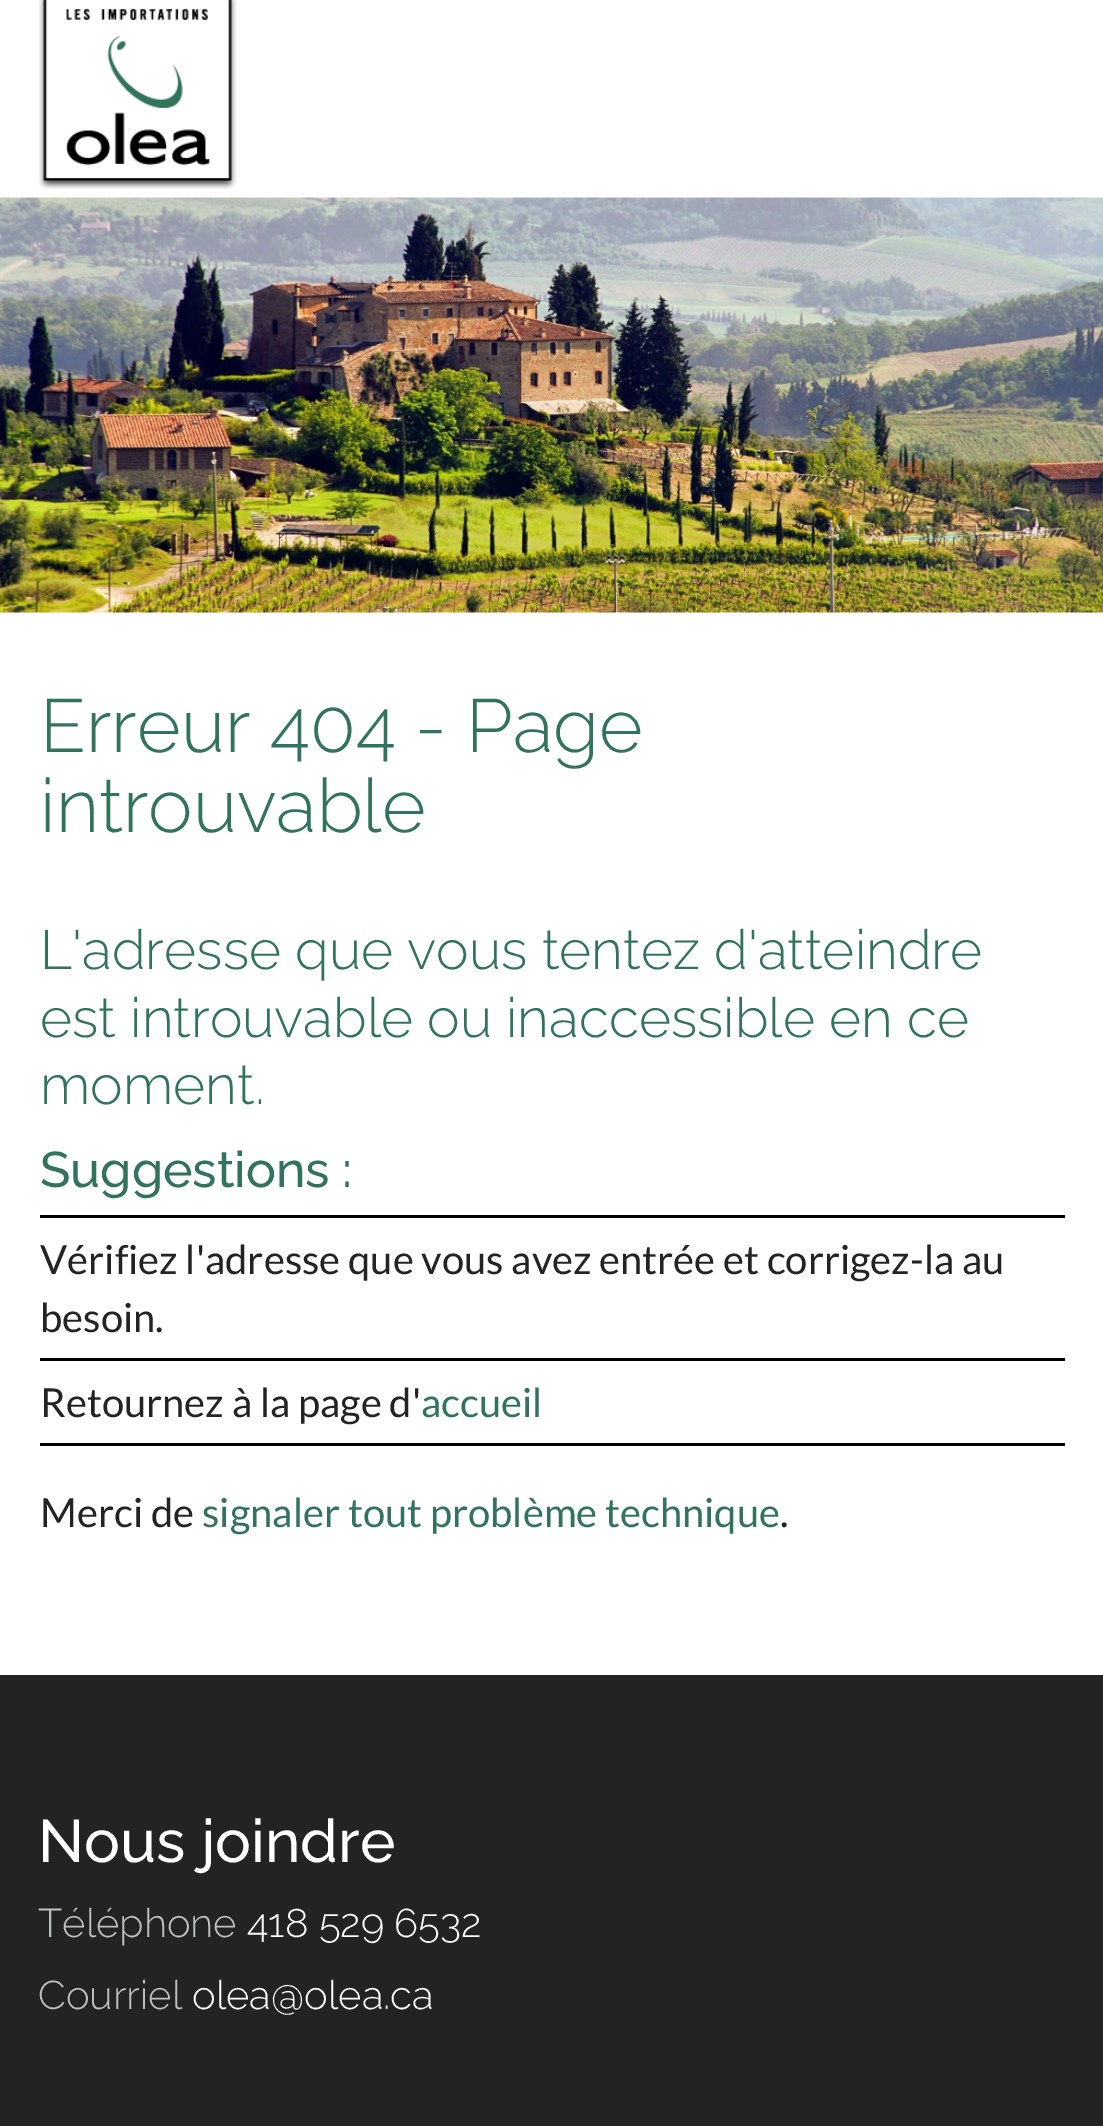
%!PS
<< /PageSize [1103 2126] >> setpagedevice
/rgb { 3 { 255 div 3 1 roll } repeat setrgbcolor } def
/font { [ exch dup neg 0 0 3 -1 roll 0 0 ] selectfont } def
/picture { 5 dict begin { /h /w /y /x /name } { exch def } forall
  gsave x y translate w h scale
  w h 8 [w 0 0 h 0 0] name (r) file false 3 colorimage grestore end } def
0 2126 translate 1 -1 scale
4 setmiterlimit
255 255 255 rgb
0 0 1103 2126 rectfill
(img/1.rgb) 38 0 199 189 picture
(img/2.rgb) 0 197 1103 416 picture
[
  [40 1215 1025 3 0 0 0]
  [40 1358 1025 3 0 0 0]
  [40 1443 1025 3 0 0 0]
  [0 1675 1103 451 35 35 35]
] { aload pop rgb rectfill } forall
/Raleway-Light 75 font
50 115 91 rgb
40 752 moveto (Erreur 404 - Page) show
40 832 moveto (introuvable) show
/Raleway-Light 55 font
[
  [(L'adresse que vous tentez d'atteindre) 40 969]
  [(est introuvable ou inaccessible en ce) 40 1037]
  [(moment.) 40 1104]
] { aload pop moveto show } forall
/Raleway-Medium 50 font
40 1187 moveto (Suggestions :) show
/Lato-Regular 40 font
35 35 35 rgb
[
  [(Vérifiez l'adresse que vous avez entrée et corrigez-la au) 40 1274]
  [(besoin.) 40 1332]
  [(Retournez à la page d') 40 1417]
] { aload pop moveto show } forall
50 115 91 rgb
421 1417 moveto (accueil) show
35 35 35 rgb
40 1527 moveto (Merci de) show
50 115 91 rgb
202 1527 moveto (signaler tout problème technique) show
35 35 35 rgb
780 1527 moveto (.) show
/Raleway-Medium 60 font
255 255 255 rgb
38 1862 moveto (Nous joindre) show
/Raleway-Light 40 font
188 190 192 rgb
38 1937 moveto (Téléphone) show
255 255 255 rgb
247 1937 moveto (418 529 6532) show
188 190 192 rgb
38 2009 moveto (Courriel) show
255 255 255 rgb
192 2009 moveto (olea@olea.ca) show
showpage
